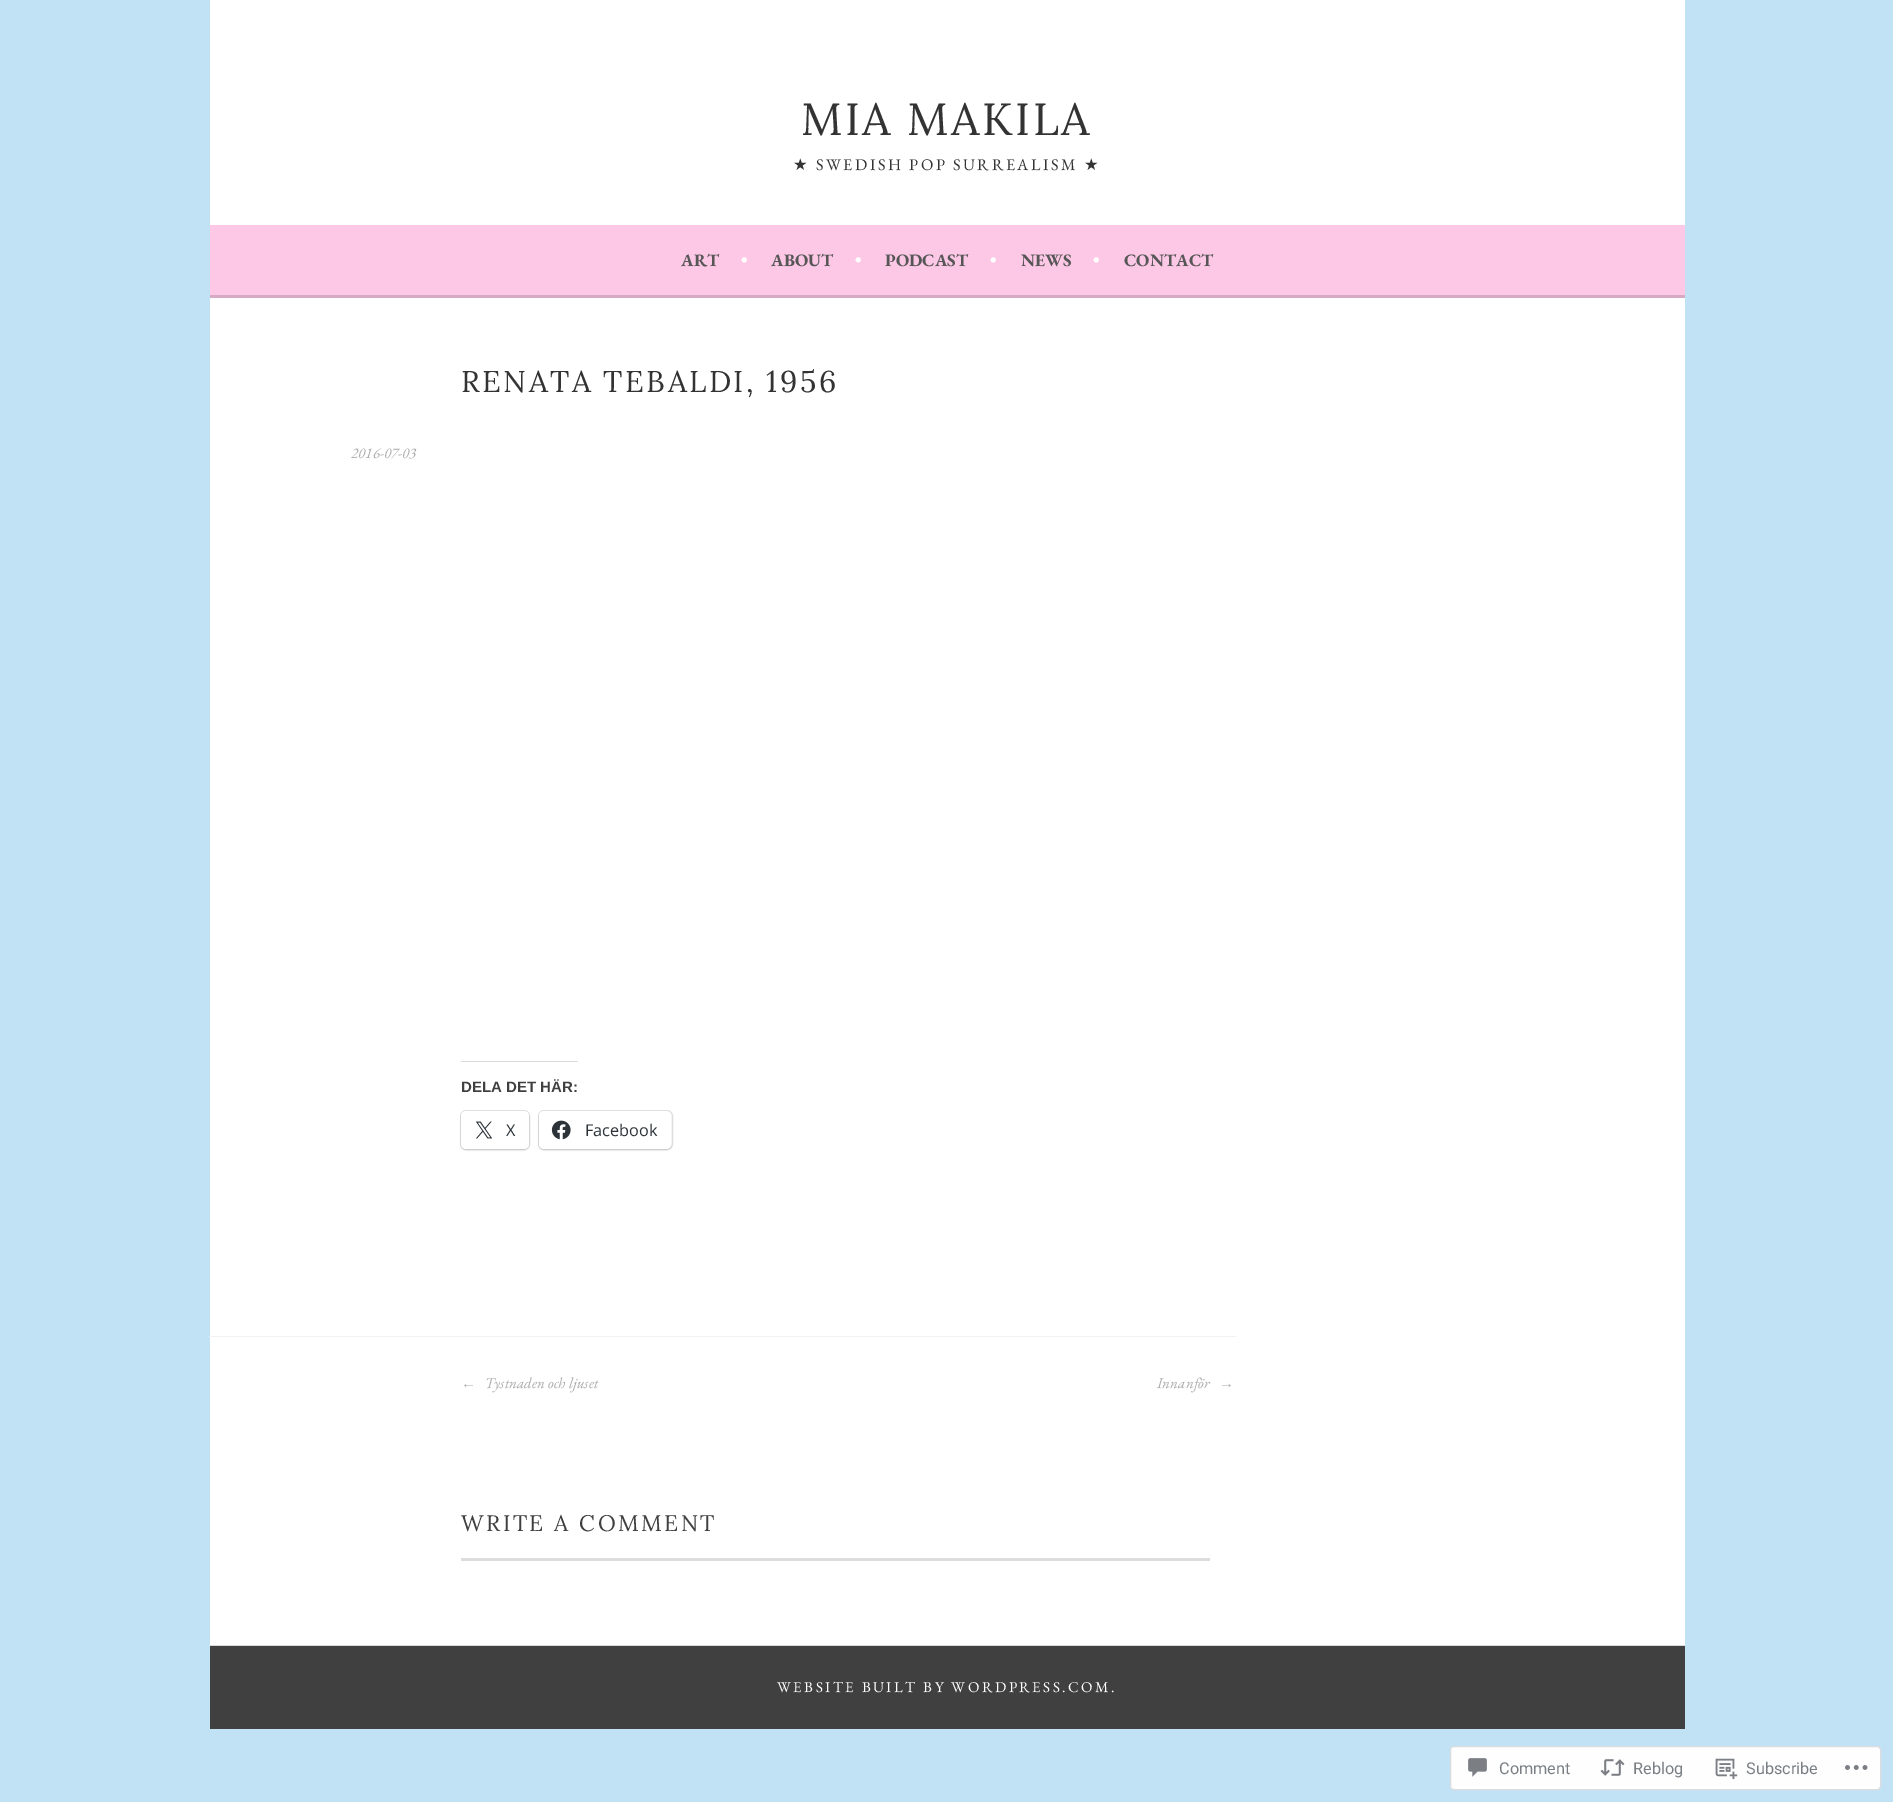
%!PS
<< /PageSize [1893 1802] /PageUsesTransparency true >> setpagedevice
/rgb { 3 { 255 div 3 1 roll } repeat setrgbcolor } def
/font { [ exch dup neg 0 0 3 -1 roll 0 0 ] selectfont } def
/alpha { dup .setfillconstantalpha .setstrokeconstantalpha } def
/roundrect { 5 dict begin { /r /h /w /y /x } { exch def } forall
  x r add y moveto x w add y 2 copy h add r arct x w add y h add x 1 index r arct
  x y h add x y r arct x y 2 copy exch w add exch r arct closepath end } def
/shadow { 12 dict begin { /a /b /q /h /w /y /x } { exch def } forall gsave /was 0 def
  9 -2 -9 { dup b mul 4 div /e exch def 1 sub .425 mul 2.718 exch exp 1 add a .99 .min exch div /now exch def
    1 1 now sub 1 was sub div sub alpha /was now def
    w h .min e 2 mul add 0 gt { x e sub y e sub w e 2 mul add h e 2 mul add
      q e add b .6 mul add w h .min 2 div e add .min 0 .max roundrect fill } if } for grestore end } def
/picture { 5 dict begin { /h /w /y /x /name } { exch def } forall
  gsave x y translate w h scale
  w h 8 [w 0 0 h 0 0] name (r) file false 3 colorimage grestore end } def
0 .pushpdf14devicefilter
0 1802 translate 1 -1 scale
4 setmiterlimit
193 225 245 rgb
0 0 1893 1802 rectfill
[
  [210 0 1475 225 255 255 255]
  [210 225 1475 70 253 200 230]
  [210 295 1475 3 215 170 196]
  [210 298 1475 1347 255 255 255]
  [461 1061 117 1 220 220 222]
] { aload pop rgb rectfill } forall
224 224 224 rgb
460.5 1110.5 69 39 5.5 roundrect stroke
0 0 0 rgb
461 1113 68 37 5 1 0.12 shadow
255 255 255 rgb
461 1111 68 38 5 roundrect fill
(img/1.rgb) 475 1121 18 18 picture
224 224 224 rgb
538.5 1110.5 134 39 5.5 roundrect stroke
0 0 0 rgb
539 1113 132 37 5 1 0.12 shadow
255 255 255 rgb
539 1111 132 38 5 roundrect fill
(img/2.rgb) 551 1120 20 20 picture
[
  [209 1336 1027 1 242 242 242]
  [461 1558 749 3 220 220 222]
  [210 1646 1475 83 64 64 64]
  [210 1645 1475 1 217 217 217]
] { aload pop rgb rectfill } forall
254 254 255 rgb
1450.5 1746.5 430 43 3.5 roundrect gsave fill grestore
219 220 222 rgb
stroke
(img/3.rgb) 1468 1758 19 19 picture
(img/4.rgb) 1600 1759 25 17 picture
(img/5.rgb) 1715 1758 23 22 picture
(img/6.rgb) 1845 1765 23 5 picture
/Lora-Regular 45 font
51 51 51 rgb
801 135 moveto 2.5 0 (MIA MAKILA) ashow
/DejaVuSans-Regular 16.25 font
793 170 moveto 2.5 0 (★) ashow
/EBGaramond-Regular 16.25 font
816 170 moveto 2.5 0 (SWEDISH POP SURREALISM) ashow
/DejaVuSans-Regular 16.25 font
1084 170 moveto 2.5 0 (★) ashow
/EBGaramond-Bold 17.5 font
86 86 86 rgb
681 266 moveto (ART) show
255 255 255 rgb
741 266 moveto (•) show
86 86 86 rgb
771 266 moveto (ABOUT) show
255 255 255 rgb
855 266 moveto (•) show
86 86 86 rgb
885 266 moveto (PODCAST) show
255 255 255 rgb
990 266 moveto (•) show
86 86 86 rgb
1021 266 moveto (NEWS) show
255 255 255 rgb
1093 266 moveto (•) show
86 86 86 rgb
1124 266 moveto (CONTACT) show
/Lora-Regular 30 font
51 51 51 rgb
461 392 moveto 2.5 0 (RENATA TEBALDI, 1956) ashow
/EBGaramond-Italic 15 font
170 170 170 rgb
351 458 moveto (2016-07-03) show
/LiberationSans-Bold 15 font
64 64 64 rgb
461 1092 moveto (DELA DET HÄR:) show
/OpenSans-Regular 16.25 font
44 51 56 rgb
506 1136 moveto (X) show
585 1136 moveto (Facebook) show
/LiberationSerif-Italic 15 font
170 170 170 rgb
461 1388 moveto (←) show
/EBGaramond-Italic 15 font
485 1388 moveto (Tystnaden och ljuset) show
1157 1388 moveto (Innanför) show
/LiberationSerif-Italic 15 font
1219 1388 moveto (→) show
/Lora-Regular 22.5 font
64 64 64 rgb
461 1531 moveto 2.5 0 (WRITE A COMMENT) ashow
/EBGaramond-Regular 15 font
255 255 255 rgb
777 1692 moveto 2.5 0 (WEBSITE BUILT BY WORDPRESS.COM.) ashow
/Roboto-Regular 16.25 font
121 126 132 rgb
[
  [(Comment) 1499 1774]
  [(Reblog) 1633 1774]
  [(Subscribe) 1746 1774]
] { aload pop moveto show } forall
.poppdf14devicefilter showpage
